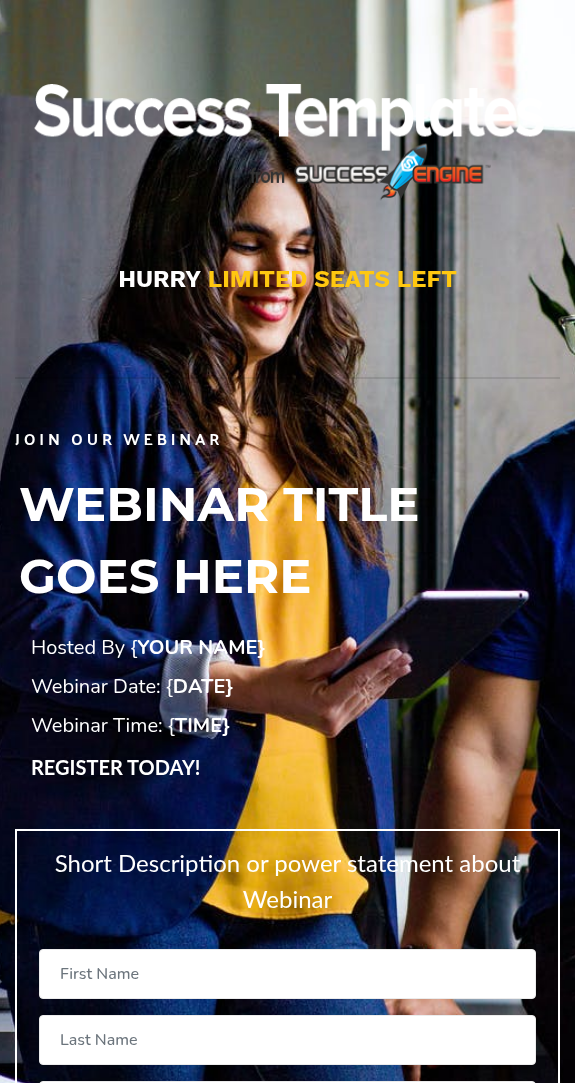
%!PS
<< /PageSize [575 1083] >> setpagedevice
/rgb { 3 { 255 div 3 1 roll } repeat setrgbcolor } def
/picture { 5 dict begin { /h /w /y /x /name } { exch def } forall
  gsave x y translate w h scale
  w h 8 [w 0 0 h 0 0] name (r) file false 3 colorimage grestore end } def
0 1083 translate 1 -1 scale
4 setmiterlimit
255 255 255 rgb
0 0 575 1083 rectfill
(img/1.rgb) 0 0 575 1083 picture
showpage
